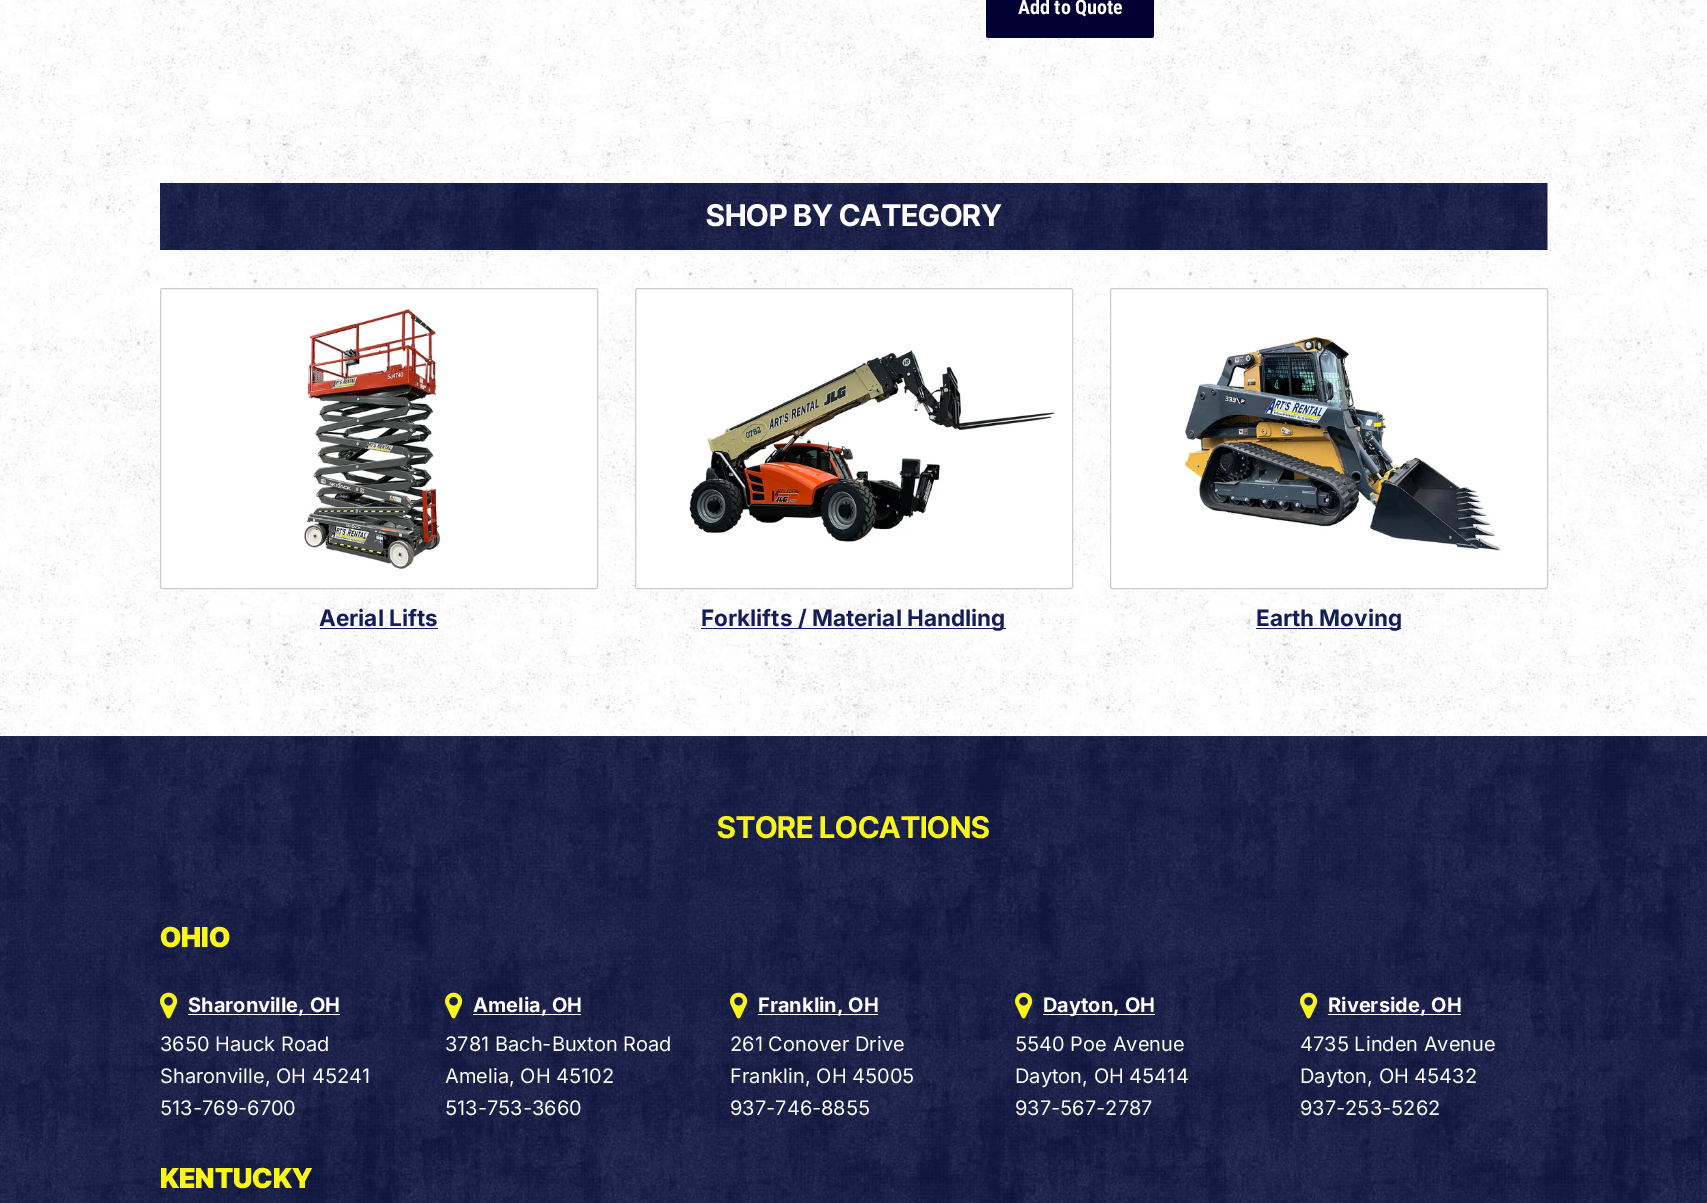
%!PS
<< /PageSize [1707 1203] >> setpagedevice
/rgb { 3 { 255 div 3 1 roll } repeat setrgbcolor } def
/font { [ exch dup neg 0 0 3 -1 roll 0 0 ] selectfont } def
/roundrect { 5 dict begin { /r /h /w /y /x } { exch def } forall
  x r add y moveto x w add y 2 copy h add r arct x w add y h add x 1 index r arct
  x y h add x y r arct x y 2 copy exch w add exch r arct closepath end } def
/picture { 5 dict begin { /h /w /y /x /name } { exch def } forall
  gsave x y translate w h scale
  w h 8 [w 0 0 h 0 0] name (r) file false 3 colorimage grestore end } def
0 1203 translate 1 -1 scale
4 setmiterlimit
255 255 255 rgb
0 0 1707 1203 rectfill
(img/1.rgb) 0 0 1707 737 picture
0 0 51 rgb
986 -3 168 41 2.5 roundrect fill
(img/2.rgb) 160 183 1388 67 picture
255 255 255 rgb
160.5 288.5 437 300 2 roundrect gsave fill grestore
204 204 204 rgb
stroke
(img/3.rgb) 302 308 140 262 picture
20 28 90 rgb
320 628 118 1 rectfill
255 255 255 rgb
635.5 288.5 437 300 2 roundrect gsave fill grestore
204 204 204 rgb
stroke
(img/4.rgb) 689 350 366 192 picture
20 28 90 rgb
701 628 305 1 rectfill
255 255 255 rgb
1110.5 288.5 437 300 2 roundrect gsave fill grestore
204 204 204 rgb
stroke
(img/5.rgb) 1184 336 317 216 picture
20 28 90 rgb
1256 628 145 1 rectfill
(img/6.rgb) 0 736 1707 467 picture
(img/7.rgb) 160 992 18 27 picture
255 255 255 rgb
188 1014 152 1 rectfill
(img/8.rgb) 445 992 18 27 picture
473 1014 108 1 rectfill
(img/9.rgb) 730 992 18 27 picture
758 1014 120 1 rectfill
(img/10.rgb) 1015 992 18 27 picture
1043 1014 112 1 rectfill
(img/11.rgb) 1300 992 18 27 picture
1328 1014 133 1 rectfill
/RobotoCondensed-Bold 20 font
1018 14 moveto (Add to Quote) show
/InterTight-Bold 30 font
706 226 moveto (SHOP BY CATEGORY) show
/Inter-Bold 22.5 font
20 28 90 rgb
[
  [(Aerial Lifts) 319 626]
  [(Forklifts / Material Handling) 701 626]
  [(Earth Moving) 1256 626]
] { aload pop moveto show } forall
/InterTight-Bold 30 font
247 246 24 rgb
717 838 moveto (STORE LOCATIONS) show
/InterTight-Black 27.5 font
160 947 moveto (OHIO) show
/Inter-Bold 20 font
255 255 255 rgb
188 1012 moveto (Sharonville, OH) show
/Inter-Regular 20 font
[
  [(3650 Hauck Road) 160 1051]
  [(Sharonville, OH 45241) 160 1083]
  [(513-769-6700) 160 1115]
] { aload pop moveto show } forall
/Inter-Bold 20 font
473 1012 moveto (Amelia, OH) show
/Inter-Regular 20 font
[
  [(3781 Bach-Buxton Road) 445 1051]
  [(Amelia, OH 45102) 445 1083]
  [(513-753-3660) 445 1115]
] { aload pop moveto show } forall
/Inter-Bold 20 font
758 1012 moveto (Franklin, OH) show
/Inter-Regular 20 font
[
  [(261 Conover Drive) 730 1051]
  [(Franklin, OH 45005) 730 1083]
  [(937-746-8855) 730 1115]
] { aload pop moveto show } forall
/Inter-Bold 20 font
1043 1012 moveto (Dayton, OH) show
/Inter-Regular 20 font
[
  [(5540 Poe Avenue) 1015 1051]
  [(Dayton, OH 45414) 1015 1083]
  [(937-567-2787) 1015 1115]
] { aload pop moveto show } forall
/Inter-Bold 20 font
1328 1012 moveto (Riverside, OH) show
/Inter-Regular 20 font
[
  [(4735 Linden Avenue) 1300 1051]
  [(Dayton, OH 45432) 1300 1083]
  [(937-253-5262) 1300 1115]
] { aload pop moveto show } forall
/InterTight-Black 27.5 font
247 246 24 rgb
160 1188 moveto (KENTUCKY) show
showpage
